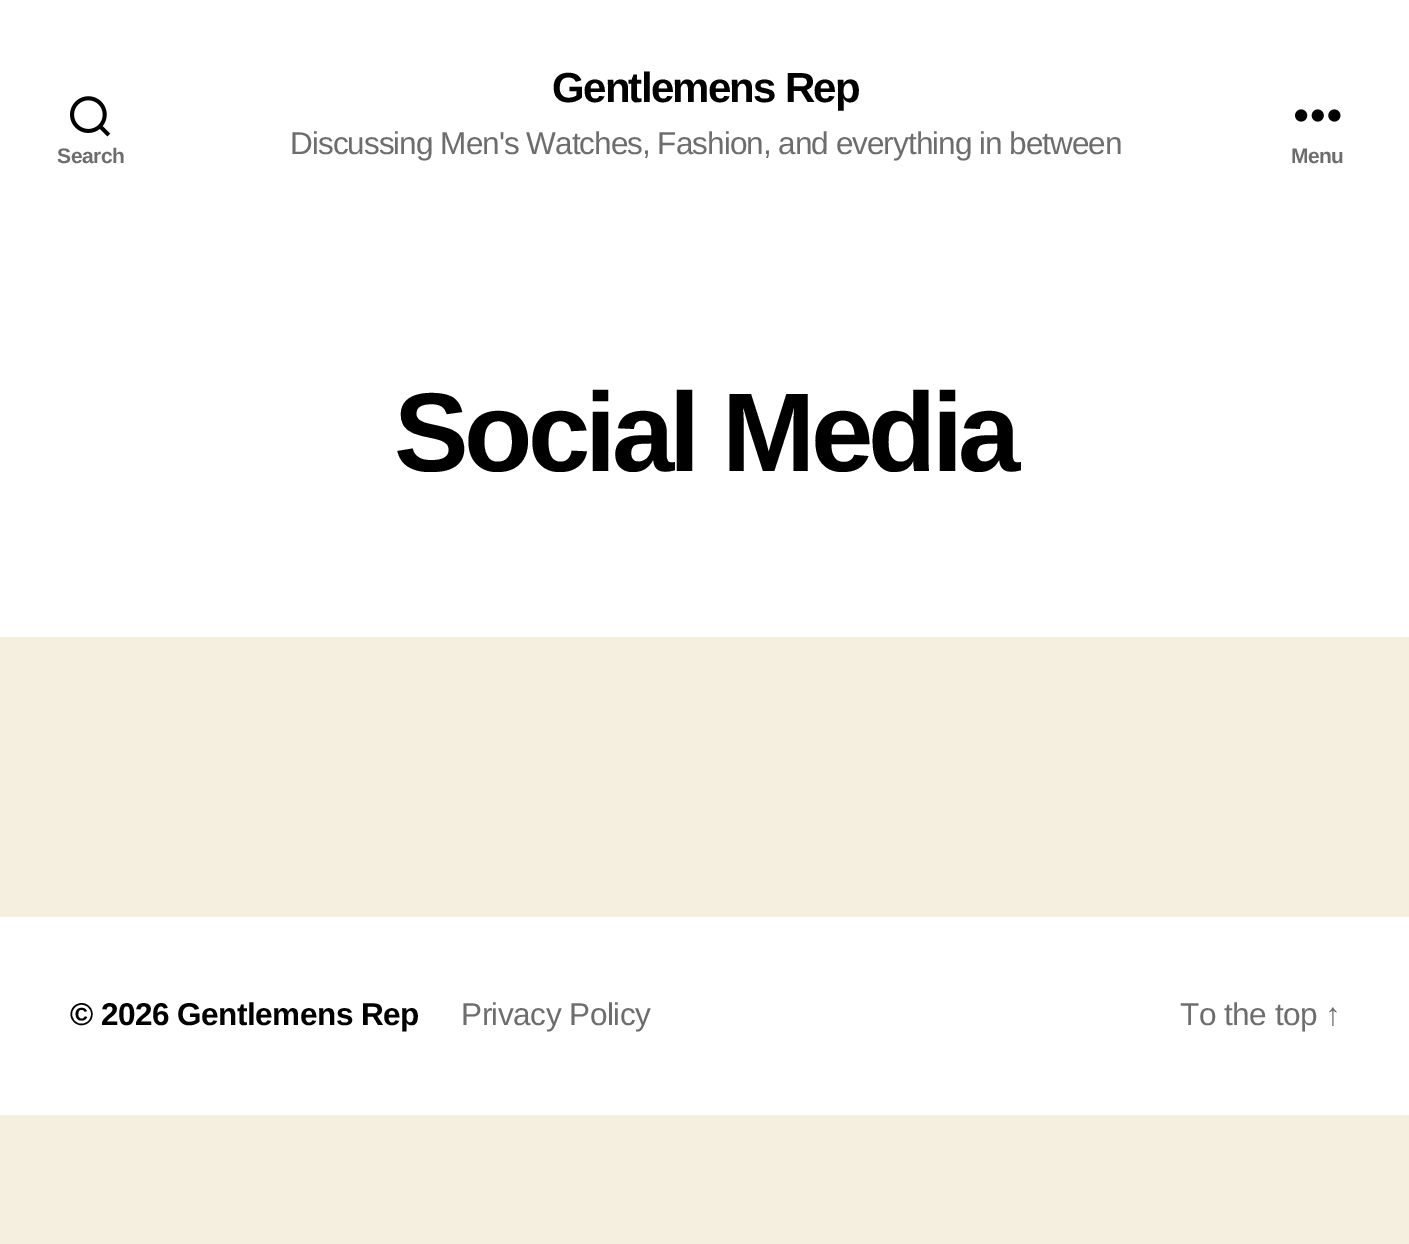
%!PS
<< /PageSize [1409 1244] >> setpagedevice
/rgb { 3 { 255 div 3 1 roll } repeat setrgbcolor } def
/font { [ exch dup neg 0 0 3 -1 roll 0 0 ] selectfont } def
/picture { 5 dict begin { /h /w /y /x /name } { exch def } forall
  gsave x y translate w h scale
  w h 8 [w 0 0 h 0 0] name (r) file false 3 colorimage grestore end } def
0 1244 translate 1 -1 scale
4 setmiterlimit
245 239 224 rgb
0 0 1409 1244 rectfill
255 255 255 rgb
0 0 1409 637 rectfill
(img/1.rgb) 70 96 40 41 picture
(img/2.rgb) 1295 109 46 13 picture
0 917 1409 198 rectfill
/LiberationSans-Bold 21 font
109 109 109 rgb
57 163 moveto -0.5 0 (Search) ashow
/LiberationSans-Bold 42 font
0 0 0 rgb
552 102 moveto -1.75 0 (Gentlemens Rep) ashow
/LiberationSans-Regular 31.5 font
109 109 109 rgb
290 154 moveto -0.98 0 (Discussing Men's Watches, Fashion, and everything in between) ashow
/LiberationSans-Bold 21 font
1291 163 moveto -0.5 0 (Menu) ashow
/LiberationSans-Bold 112 font
0 0 0 rgb
394 471 moveto -4.7 0 (Social Media) ashow
/LiberationSans-Bold 31.5 font
70 1025 moveto -0.5 0 (© 2026 Gentlemens Rep) ashow
/LiberationSans-Regular 31.5 font
109 109 109 rgb
461 1025 moveto -0.5 0 (Privacy Policy) ashow
1180 1025 moveto -0.5 0 (To the top ↑) ashow
showpage
